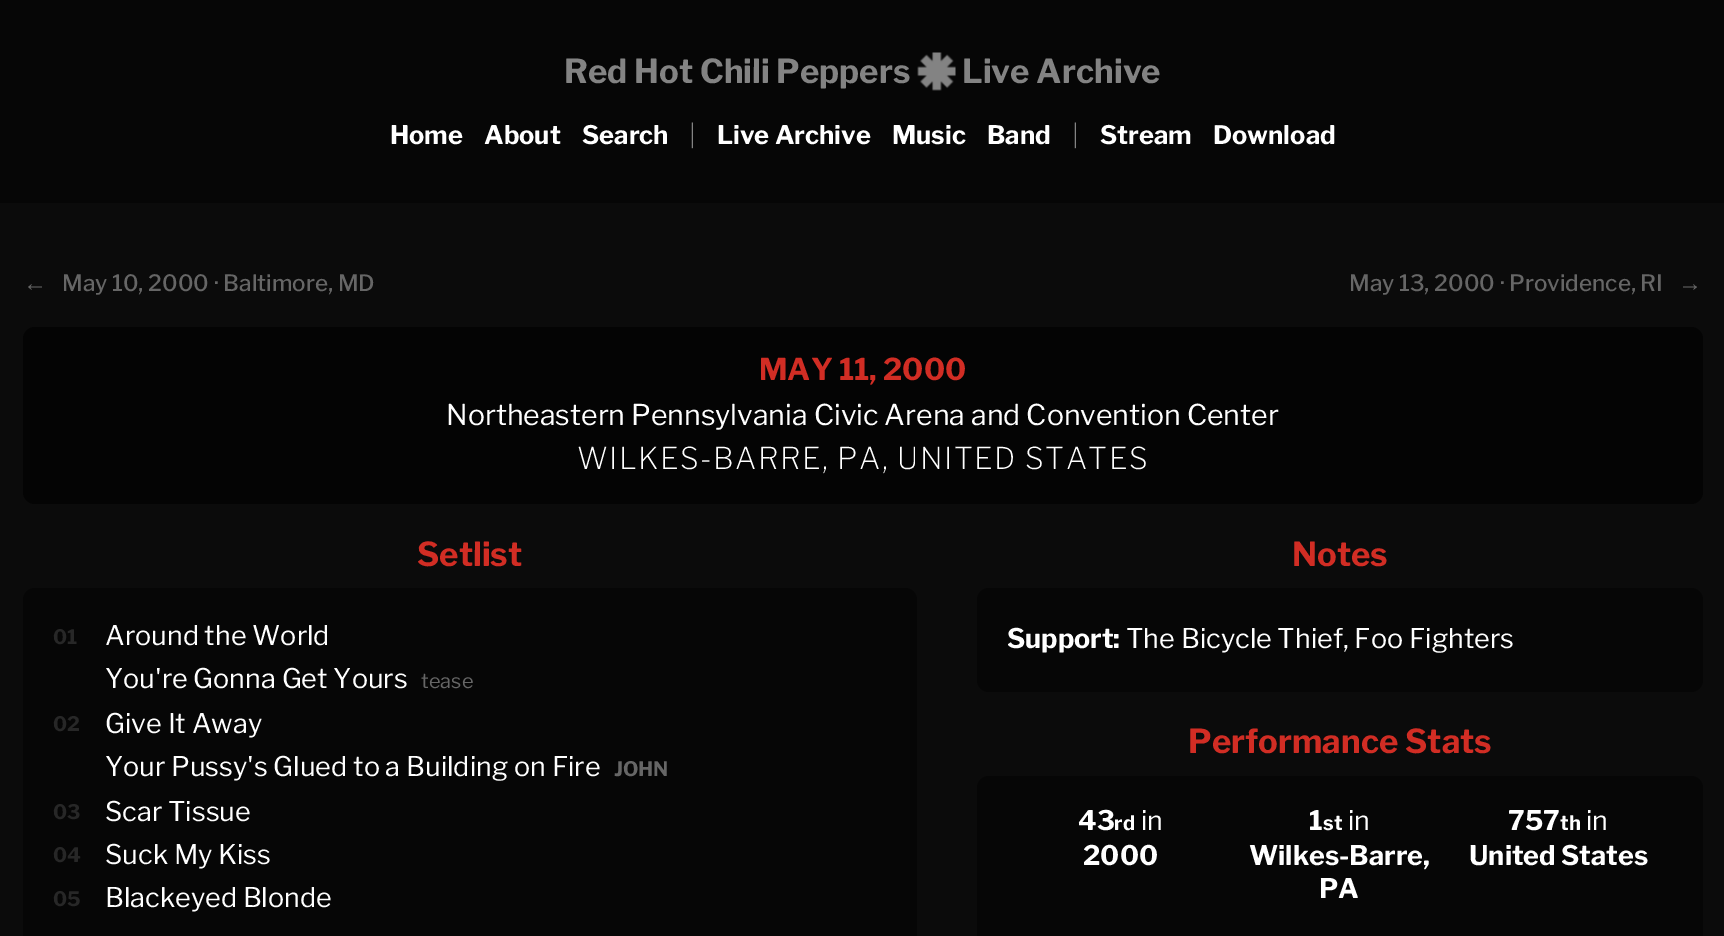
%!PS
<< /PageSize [1724 936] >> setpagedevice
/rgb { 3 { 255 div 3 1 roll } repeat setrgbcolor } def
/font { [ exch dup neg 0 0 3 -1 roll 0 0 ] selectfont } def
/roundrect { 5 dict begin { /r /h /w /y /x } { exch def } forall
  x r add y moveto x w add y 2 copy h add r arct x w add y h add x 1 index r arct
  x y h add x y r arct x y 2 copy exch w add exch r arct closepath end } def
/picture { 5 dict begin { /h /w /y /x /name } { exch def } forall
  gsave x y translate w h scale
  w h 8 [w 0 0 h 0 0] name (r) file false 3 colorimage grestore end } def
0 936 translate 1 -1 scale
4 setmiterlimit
11 11 11 rgb
0 0 1724 936 rectfill
6 6 6 rgb
0 0 1724 203 rectfill
(img/1.rgb) 917 52 39 39 picture
4 4 4 rgb
23 327 1680 177 12 roundrect fill
6 6 6 rgb
23 588 894 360 12 roundrect fill
977 588 726 104 12 roundrect fill
977 776 726 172 12 roundrect fill
/LibreFranklin-Bold 33 font
131 131 131 rgb
564 83 moveto (Red Hot Chili Peppers) show
962 83 moveto (Live Archive) show
/LibreFranklin-Bold 25.5 font
255 255 255 rgb
[
  [(Home) 390 144]
  [(About) 484 144]
  [(Search) 582 144]
] { aload pop moveto show } forall
/LibreFranklin-ExtraLight 25.5 font
131 131 131 rgb
689 144 moveto (|) show
/LibreFranklin-Bold 25.5 font
255 255 255 rgb
[
  [(Live Archive) 717 144]
  [(Music) 892 144]
  [(Band) 987 144]
] { aload pop moveto show } forall
/LibreFranklin-ExtraLight 25.5 font
131 131 131 rgb
1072 144 moveto (|) show
/LibreFranklin-Bold 25.5 font
255 255 255 rgb
1100 144 moveto (Stream) show
1213 144 moveto (Download) show
/LiberationSans-Bold 24 font
102 102 102 rgb
23 291 moveto (←) show
/LibreFranklin-Medium 22.5 font
62 291 moveto (May 10, 2000 · Baltimore, MD) show
1349 291 moveto (May 13, 2000 · Providence, RI) show
/LiberationSans-Bold 24 font
1678 291 moveto (→) show
/LibreFranklin-Bold 30 font
209 45 36 rgb
759 380 moveto (MAY 11, 2000) show
/LibreFranklin-Regular 28.5 font
255 255 255 rgb
446 425 moveto (Northeastern Pennsylvania Civic Arena and Convention Center) show
/LibreFranklin-ExtraLight 30 font
577 469 moveto 1.5 0 (WILKES-BARRE, PA, UNITED STATES) ashow
/LibreFranklin-Bold 33 font
209 45 36 rgb
417 566 moveto (Setlist) show
/LibreFranklin-Bold 20 font
39 39 39 rgb
53 644 moveto (01) show
/LibreFranklin-Regular 27 font
255 255 255 rgb
105 645 moveto (Around the World) show
105 688 moveto (You're Gonna Get Yours) show
/LibreFranklin-Regular 20 font
102 102 102 rgb
421 688 moveto (tease) show
/LibreFranklin-Bold 20 font
39 39 39 rgb
53 731 moveto (02) show
/LibreFranklin-Regular 27 font
255 255 255 rgb
105 733 moveto (Give It Away) show
105 776 moveto (Your Pussy's Glued to a Building on Fire) show
/LibreFranklin-Bold 20 font
102 102 102 rgb
614 776 moveto (JOHN) show
39 39 39 rgb
53 819 moveto (03) show
/LibreFranklin-Regular 27 font
255 255 255 rgb
105 821 moveto (Scar Tissue) show
/LibreFranklin-Bold 20 font
39 39 39 rgb
53 862 moveto (04) show
/LibreFranklin-Regular 27 font
255 255 255 rgb
105 864 moveto (Suck My Kiss) show
/LibreFranklin-Bold 20 font
39 39 39 rgb
53 906 moveto (05) show
/LibreFranklin-Regular 27 font
255 255 255 rgb
105 907 moveto (Blackeyed Blonde) show
/LibreFranklin-Bold 33 font
209 45 36 rgb
1292 566 moveto (Notes) show
/LibreFranklin-Bold 27 font
255 255 255 rgb
1007 648 moveto (Support:) show
/LibreFranklin-Regular 27 font
1126 648 moveto (The Bicycle Thief, Foo Fighters) show
/LibreFranklin-Bold 33 font
209 45 36 rgb
1188 753 moveto (Performance Stats) show
/LibreFranklin-Bold 27 font
255 255 255 rgb
1078 830 moveto (43) show
/LibreFranklin-Bold 20 font
1114 830 moveto (rd) show
/LibreFranklin-Regular 27 font
1141 830 moveto (in) show
/LibreFranklin-Bold 27 font
1083 865 moveto (2000) show
1309 830 moveto (1) show
/LibreFranklin-Bold 20 font
1323 830 moveto (st) show
/LibreFranklin-Regular 27 font
1348 830 moveto (in) show
/LibreFranklin-Bold 27 font
[
  [(Wilkes-Barre,) 1249 865]
  [(PA) 1319 898]
  [(757) 1508 830]
] { aload pop moveto show } forall
/LibreFranklin-Bold 20 font
1560 830 moveto (th) show
/LibreFranklin-Regular 27 font
1586 830 moveto (in) show
/LibreFranklin-Bold 27 font
1469 865 moveto (United States) show
showpage
